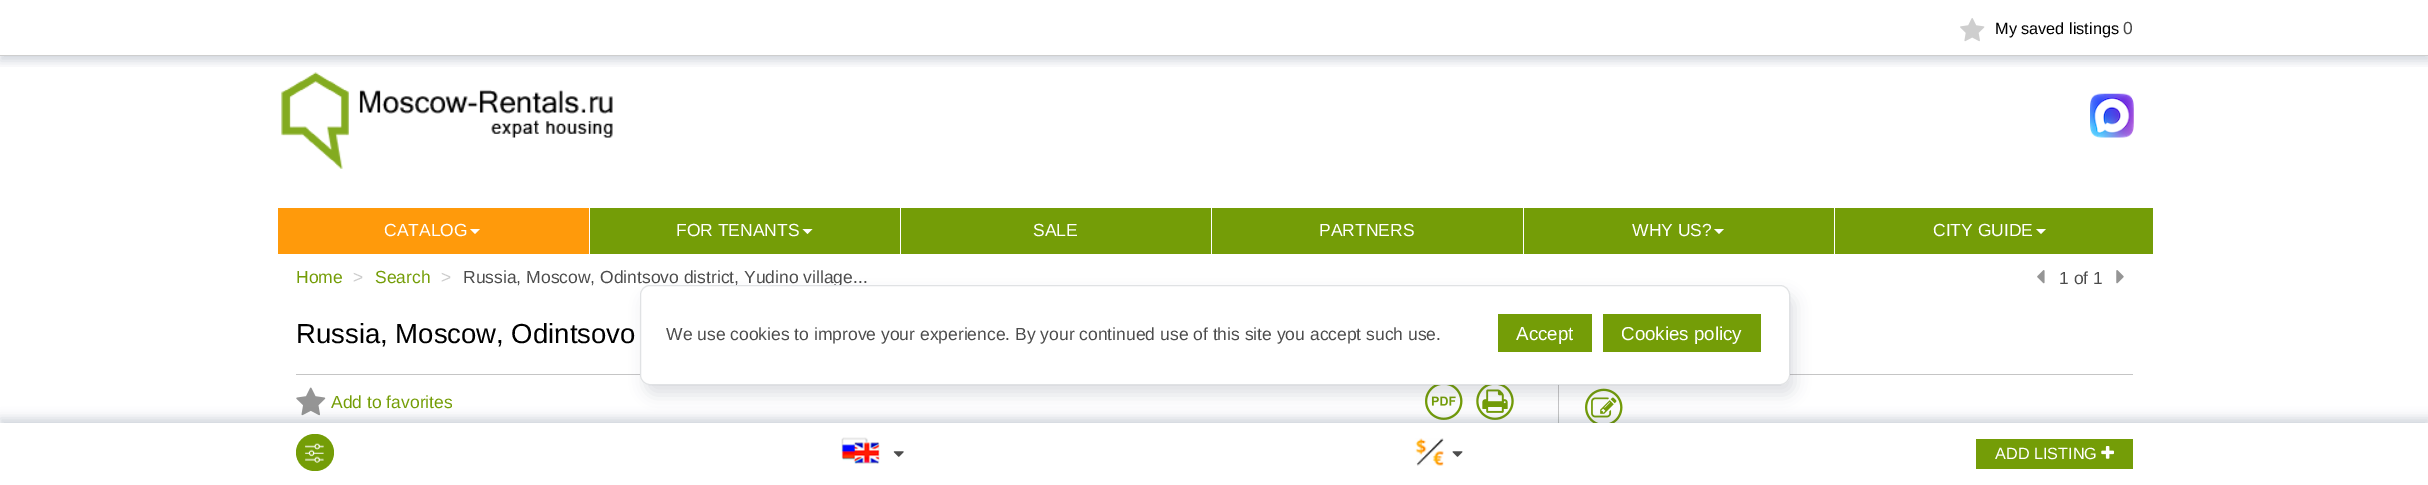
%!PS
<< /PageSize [2428 485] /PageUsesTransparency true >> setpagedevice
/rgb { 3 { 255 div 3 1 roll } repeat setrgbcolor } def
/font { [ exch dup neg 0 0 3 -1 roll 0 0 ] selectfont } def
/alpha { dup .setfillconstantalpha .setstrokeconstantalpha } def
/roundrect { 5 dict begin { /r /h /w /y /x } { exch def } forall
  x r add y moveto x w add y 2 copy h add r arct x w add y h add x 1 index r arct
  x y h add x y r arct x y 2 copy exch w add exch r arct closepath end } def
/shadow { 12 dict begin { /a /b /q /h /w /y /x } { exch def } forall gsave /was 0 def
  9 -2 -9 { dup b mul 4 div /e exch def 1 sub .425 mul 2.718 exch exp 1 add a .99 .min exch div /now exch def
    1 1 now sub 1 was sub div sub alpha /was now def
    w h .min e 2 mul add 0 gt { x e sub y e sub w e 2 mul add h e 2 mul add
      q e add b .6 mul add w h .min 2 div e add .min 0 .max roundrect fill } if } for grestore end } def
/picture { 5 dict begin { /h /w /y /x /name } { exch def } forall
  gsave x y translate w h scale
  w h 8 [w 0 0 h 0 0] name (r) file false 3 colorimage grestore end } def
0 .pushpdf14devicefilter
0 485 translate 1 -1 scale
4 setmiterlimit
255 255 255 rgb
0 0 2428 485 rectfill
(img/2.rgb) 281 72 332 97 picture
gsave
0 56 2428 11 rectclip
34 60 80 rgb
0 5 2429 56 0 5 0.2 shadow
grestore
206 206 206 rgb
0 55 2428 1 rectfill
(img/1.rgb) 1960 18 25 24 picture
(img/3.rgb) 2090 93 44 45 picture
116 157 7 rgb
590 208 1563 46 rectfill
255 154 11 rgb
278 208 311 46 rectfill
255 255 255 rgb
470 229 moveto 480 229 lineto 475 234 lineto closepath fill
802.5 229 moveto 812.5 229 lineto 807.5 234 lineto closepath fill
[
  [900 208 1 46 255 255 255]
  [1211 208 1 46 255 255 255]
  [1523 208 1 46 255 255 255]
] { aload pop rgb rectfill } forall
1714 229 moveto 1724 229 lineto 1719 234 lineto closepath fill
1834 208 1 46 rectfill
2036 229 moveto 2046 229 lineto 2041 234 lineto closepath fill
(img/4.rgb) 2037 270 8 14 picture
(img/5.rgb) 2116 270 8 14 picture
197 197 197 rgb
1558 385 1 38 rectfill
296 374 344 1 rectfill
(img/6.rgb) 296 387 30 29 picture
(img/7.rgb) 1425 385 38 35 picture
(img/8.rgb) 1476 385 38 35 picture
1790 374 343 1 rectfill
(img/9.rgb) 1585 388 38 35 picture
50 62 72 rgb
645 295 1150 100 10 7.5 0.15 shadow
34 60 80 rgb
0 418 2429 62 0 5 0.2 shadow
255 255 255 rgb
0 423 2428 62 rectfill
116 157 7 rgb
296 434 38 37 18.5 roundrect fill
(img/10.rgb) 305 443 19 20 picture
(img/11.rgb) 841 437 39 27 picture
(img/12.rgb) 893 451 11 6 picture
(img/13.rgb) 1415 438 29 28 picture
(img/14.rgb) 1452 451 11 6 picture
1976 439 157 30 rectfill
(img/15.rgb) 2101 446 13 13 picture
/LiberationSans-Regular 16.25 font
0 0 0 rgb
1995 34 moveto (My saved listings) show
/LiberationSans-Regular 17.5 font
76 76 76 rgb
2123 34 moveto (0) show
255 255 255 rgb
[
  [(СATALOG) 384 236]
  [(FOR TENANTS) 676 236]
  [(SALE) 1033 236]
  [(PARTNERS) 1319 236]
  [(WHY US?) 1632 236]
  [(CITY GUIDE) 1933 236]
] { aload pop moveto show } forall
116 157 7 rgb
296 283 moveto (Home) show
204 204 204 rgb
353 283 moveto (>) show
116 157 7 rgb
375 283 moveto (Search) show
204 204 204 rgb
441 283 moveto (>) show
76 76 76 rgb
463 283 moveto (Russia, Moscow, Odintsovo district, Yudino village...) show
2059 284 moveto (1 of 1) show
/LiberationSans-Regular 27.5 font
0 0 0 rgb
296 343 moveto (Russia, Moscow, Odintsovo) show
/LiberationSans-Regular 17.5 font
116 157 7 rgb
331 408 moveto (Add to favorites) show
255 255 255 rgb
640 285 1150 100 10 roundrect fill
0.15 alpha
50 62 72 rgb
640.5 285.5 1149 99 9.5 roundrect stroke
1 alpha
76 76 76 rgb
666 340 moveto (We use cookies to improve your experience. By your continued use of this site you accept such use.) show
116 157 7 rgb
1498 314 94 38 rectfill
/LiberationSans-Regular 18.75 font
255 255 255 rgb
1516 340 moveto (Accept) show
116 157 7 rgb
1603 314 158 38 rectfill
255 255 255 rgb
1621 340 moveto (Cookies policy) show
/LiberationSans-Regular 16.25 font
1995 459 moveto (ADD LISTING) show
.poppdf14devicefilter showpage
